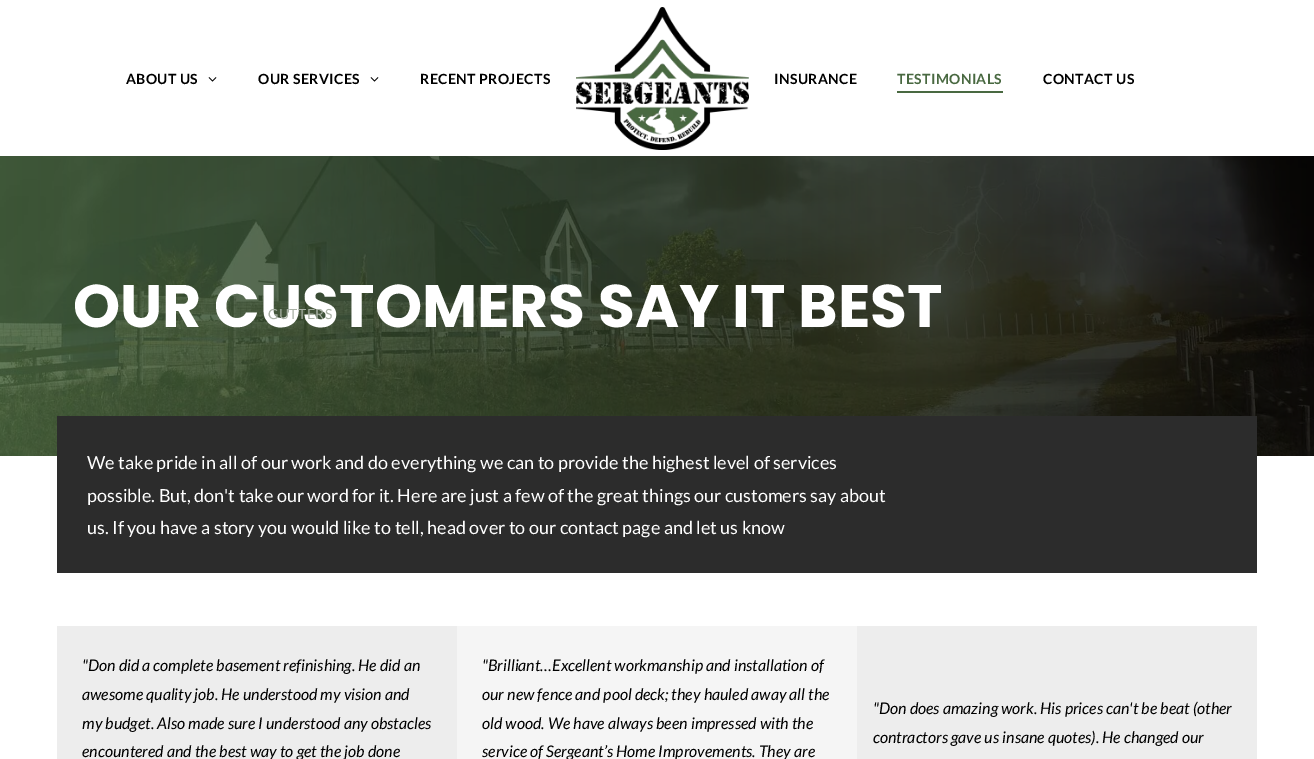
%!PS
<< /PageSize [1314 759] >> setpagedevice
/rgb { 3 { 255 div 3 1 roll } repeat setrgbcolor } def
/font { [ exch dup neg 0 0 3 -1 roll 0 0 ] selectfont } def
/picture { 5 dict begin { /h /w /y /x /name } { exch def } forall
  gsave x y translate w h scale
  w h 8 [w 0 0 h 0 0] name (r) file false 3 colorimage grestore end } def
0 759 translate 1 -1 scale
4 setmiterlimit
255 255 255 rgb
0 0 1314 759 rectfill
(img/1.rgb) 208 77 9 5 picture
(img/1.rgb) 370 77 9 5 picture
(img/2.rgb) 576 7 173 143 picture
73 105 65 rgb
897 91 106 2 rectfill
(img/3.rgb) 0 156 1314 300 picture
[
  [57 416 1200 157 44 44 44]
  [57 626 400 133 237 237 237]
  [457 626 400 133 245 245 245]
  [857 626 400 133 237 237 237]
] { aload pop rgb rectfill } forall
/Lato-Bold 14 font
0 0 0 rgb
126 84 moveto 0.4 0 (ABOUT US) ashow
258 84 moveto 0.4 0 (OUR SERVICES) ashow
420 84 moveto 0.4 0 (RECENT PROJECTS) ashow
774 84 moveto 0.4 0 (INSURANCE) ashow
73 105 65 rgb
897 84 moveto 0.4 0 (TESTIMONIALS) ashow
0 0 0 rgb
1043 84 moveto 0.4 0 (CONTACT US) ashow
/Poppins-Bold 60 font
255 255 255 rgb
73 327 moveto (OUR CUSTOMERS SAY IT BEST) show
/Lato-Regular 14 font
169 177 165 rgb
268 319 moveto 0.4 0 (GUTTERS) ashow
/Lato-Regular 18 font
255 255 255 rgb
[
  [(We take pride in all of our work and do everything we can to provide the highest level of services) 87 469]
  [(possible. But, don't take our word for it. Here are just a few of the great things our customers say about) 87 502]
  [(us. If you have a story you would like to tell, head over to our contact page and let us know) 87 534]
] { aload pop moveto show } forall
/Lato-Italic 16 font
0 0 0 rgb
[
  [("Don did a complete basement refinishing. He did an) 82 671]
  [(awesome quality job. He understood my vision and) 82 700]
  [(my budget. Also made sure I understood any obstacles) 82 729]
  [(encountered and the best way to get the job done) 82 757]
  [("Brilliant…Excellent workmanship and installation of) 482 671]
  [(our new fence and pool deck; they hauled away all the) 482 700]
  [(old wood. We have always been impressed with the) 482 729]
  [(service of Sergeant’s Home Improvements. They are) 482 757]
  [("Don does amazing work. His prices can't be beat \(other) 873 714]
  [(contractors gave us insane quotes\). He changed our) 873 743]
] { aload pop moveto show } forall
showpage
